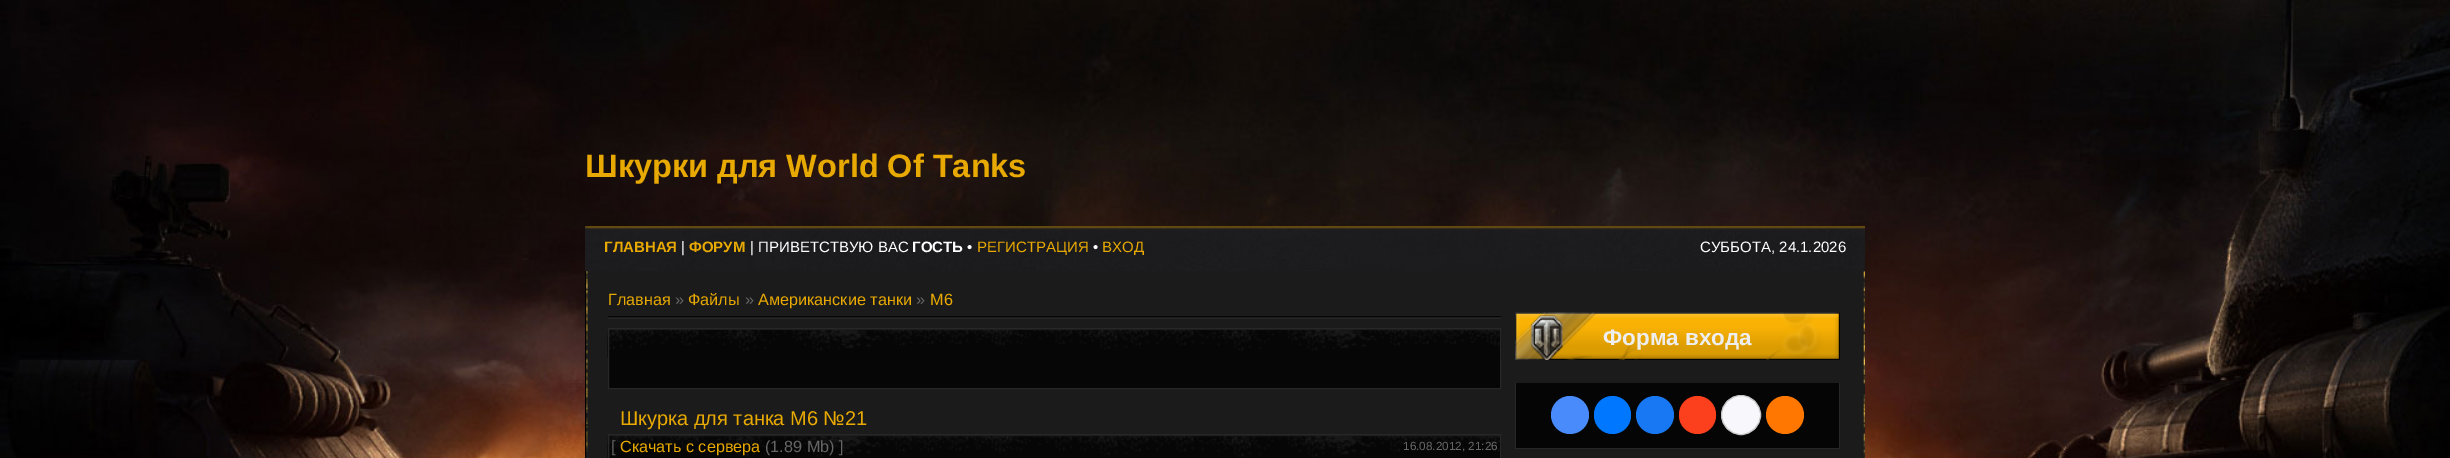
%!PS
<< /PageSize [2450 458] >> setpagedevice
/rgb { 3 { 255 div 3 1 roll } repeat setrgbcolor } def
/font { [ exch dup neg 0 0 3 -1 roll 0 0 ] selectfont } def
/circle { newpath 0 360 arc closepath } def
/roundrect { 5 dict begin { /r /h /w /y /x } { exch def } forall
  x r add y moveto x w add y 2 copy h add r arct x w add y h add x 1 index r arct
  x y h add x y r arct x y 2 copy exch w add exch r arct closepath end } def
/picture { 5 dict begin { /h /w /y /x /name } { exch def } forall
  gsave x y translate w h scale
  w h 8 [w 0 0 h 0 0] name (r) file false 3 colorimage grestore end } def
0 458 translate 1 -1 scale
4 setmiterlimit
255 255 255 rgb
0 0 2450 458 rectfill
(img/1.rgb) 0 0 2450 458 picture
(img/2.rgb) 585 0 1280 272 picture
(img/3.rgb) 585 226 1280 46 picture
(img/4.rgb) 585 271 1280 187 picture
[
  [608 316 893 1 7 7 7]
  [608 318 893 1 39 39 39]
  [609 357 891 31 6 6 6]
] { aload pop rgb rectfill } forall
(img/5.rgb) 607 328 895 30 picture
39 39 39 rgb
608.5 328.5 892 60 rectstroke
(img/6.rgb) 607 435 895 23 picture
608.5 434.5 892 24 rectstroke
(img/7.rgb) 1515 312 325 48 picture
[
  [1516 383 323 65 5 5 5]
  [1839 383 1 66 39 39 39]
  [1515 448 325 1 39 39 39]
  [1515 383 1 66 39 39 39]
] { aload pop rgb rectfill } forall
73 139 250 rgb
1570 415 19 circle fill
0 119 255 rgb
1594 396 37 38 18.5 roundrect fill
24 119 242 rgb
1655 415 19 circle fill
252 63 29 rgb
1679 396 37 38 18.5 roundrect fill
248 248 252 rgb
1741 415 19.5 circle gsave fill grestore
196 196 196 rgb
stroke
255 119 0 rgb
1785 415 19 circle fill
/LiberationSans-Bold 32.5 font
232 169 2 rgb
585 177 moveto (Шкурки для World Of Tanks) show
/LiberationSans-Bold 15 font
604 252 moveto (ГЛАВНАЯ) show
/LiberationSans-Regular 15 font
255 255 255 rgb
681 252 moveto (|) show
/LiberationSans-Bold 15 font
232 169 2 rgb
689 252 moveto (ФОРУМ) show
/LiberationSans-Regular 15 font
255 255 255 rgb
750 252 moveto (| ПРИВЕТСТВУЮ ВАС) show
/LiberationSans-Bold 15 font
912 252 moveto (ГОСТЬ) show
/LiberationSans-Regular 15 font
967 252 moveto (•) show
232 169 2 rgb
977 252 moveto (РЕГИСТРАЦИЯ) show
255 255 255 rgb
1093 252 moveto (•) show
232 169 2 rgb
1102 252 moveto (ВХОД) show
255 255 255 rgb
1700 252 moveto (СУББОТА, 24.1.2026) show
/LiberationSans-Regular 16.25 font
232 169 2 rgb
608 305 moveto (Главная) show
102 102 102 rgb
675 305 moveto (») show
232 169 2 rgb
688 305 moveto (Файлы) show
102 102 102 rgb
745 305 moveto (») show
232 169 2 rgb
758 305 moveto (Американские танки) show
102 102 102 rgb
916 305 moveto (») show
232 169 2 rgb
930 305 moveto (M6) show
/LiberationSans-Regular 20 font
620 425 moveto (Шкурка для танка M6 №21) show
/LiberationSans-Regular 16.25 font
102 102 102 rgb
611 452 moveto ([) show
232 169 2 rgb
620 452 moveto (Скачать с сервера) show
102 102 102 rgb
765 452 moveto (\(1.89 Mb\) ]) show
/LiberationSans-Regular 11.75 font
1403 450 moveto (16.08.2012, 21:26) show
/LiberationSans-Bold 22.5 font
238 238 238 rgb
1603 345 moveto (Форма входа) show
showpage
